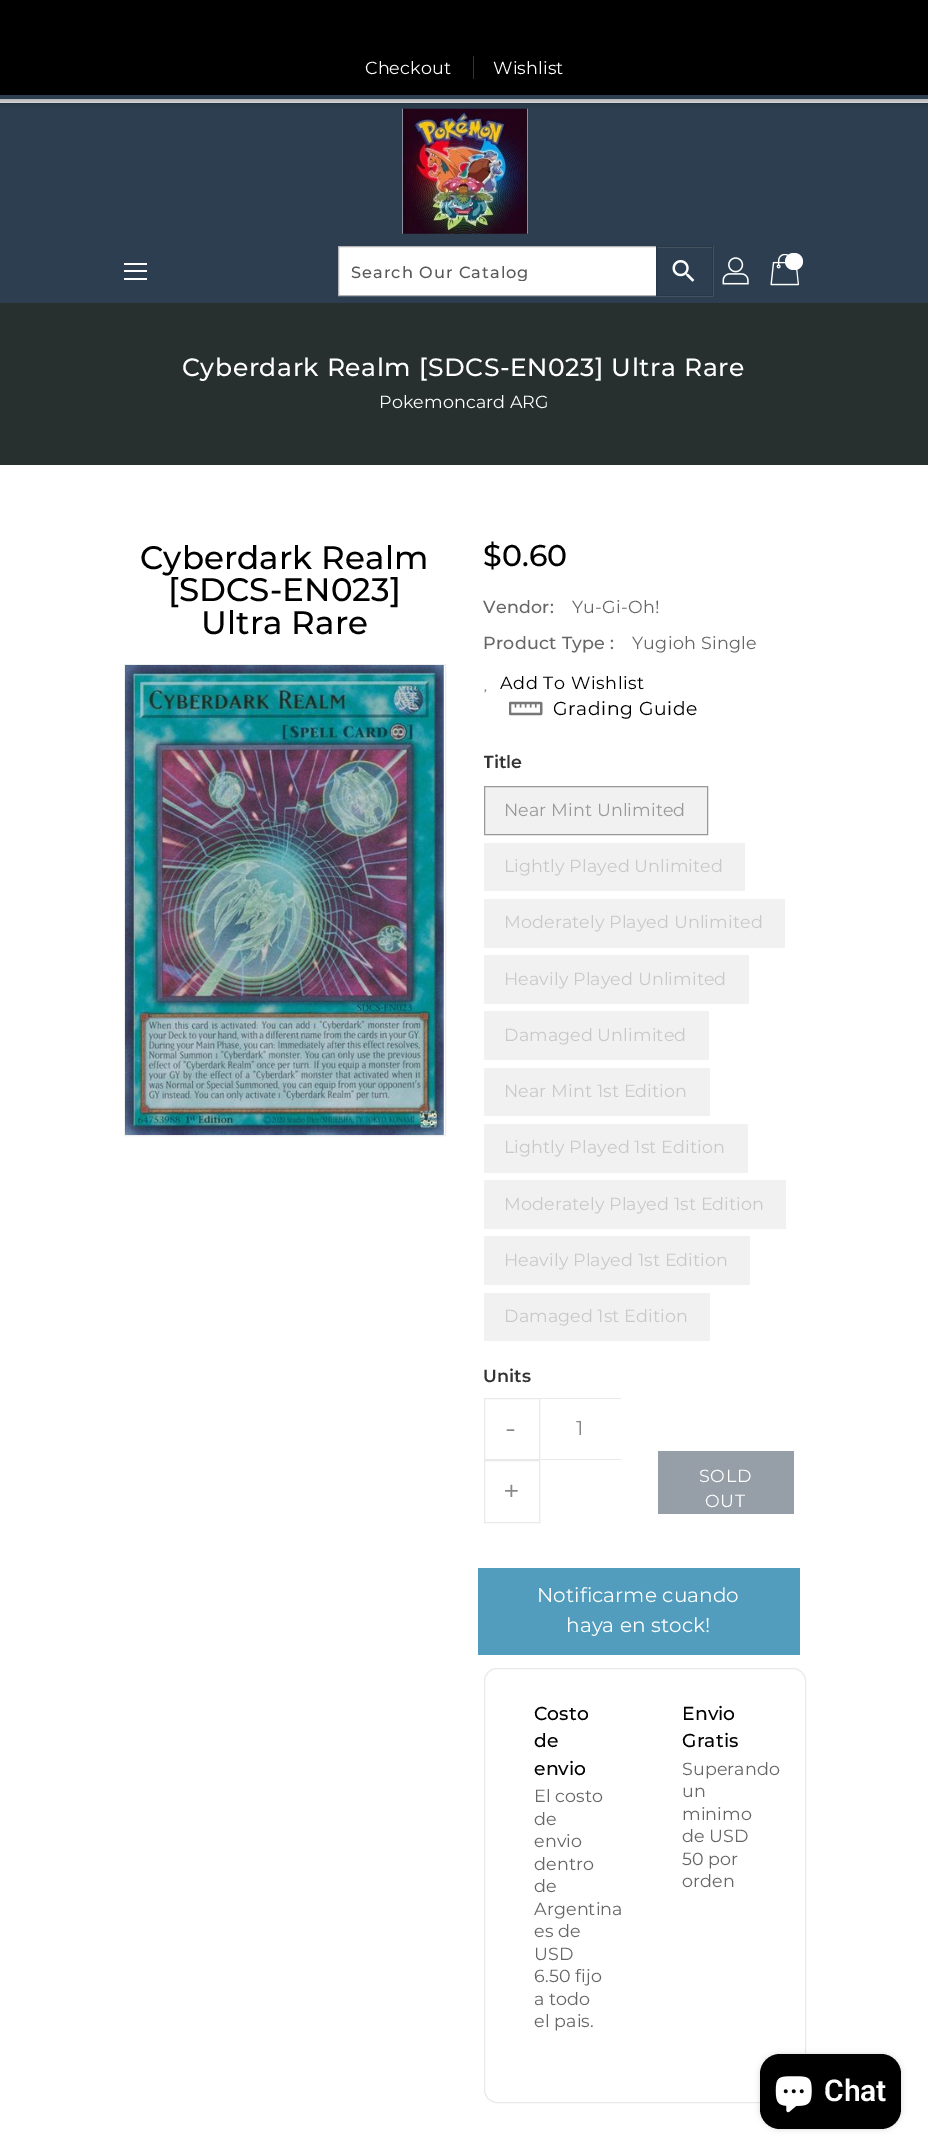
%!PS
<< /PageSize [928 2154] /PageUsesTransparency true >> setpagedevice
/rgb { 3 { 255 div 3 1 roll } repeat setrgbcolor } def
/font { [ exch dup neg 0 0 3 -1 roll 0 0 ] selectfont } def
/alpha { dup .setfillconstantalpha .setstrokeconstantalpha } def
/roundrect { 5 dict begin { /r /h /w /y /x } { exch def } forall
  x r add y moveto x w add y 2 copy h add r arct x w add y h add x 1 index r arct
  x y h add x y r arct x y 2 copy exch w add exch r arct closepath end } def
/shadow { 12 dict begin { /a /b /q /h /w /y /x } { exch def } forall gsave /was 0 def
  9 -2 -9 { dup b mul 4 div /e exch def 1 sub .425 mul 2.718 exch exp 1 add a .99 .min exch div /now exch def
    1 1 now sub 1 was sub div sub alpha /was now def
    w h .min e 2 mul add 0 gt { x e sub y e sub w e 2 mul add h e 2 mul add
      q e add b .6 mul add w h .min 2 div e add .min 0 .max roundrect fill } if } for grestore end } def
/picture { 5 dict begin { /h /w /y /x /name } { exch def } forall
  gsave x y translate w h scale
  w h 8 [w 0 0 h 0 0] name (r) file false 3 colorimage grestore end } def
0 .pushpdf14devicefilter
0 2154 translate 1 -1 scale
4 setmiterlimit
255 255 255 rgb
0 0 928 2154 rectfill
44 62 80 rgb
0 103 928 200 rectfill
0 0 0 rgb
-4 -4 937 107 0 2.5 0.3 shadow
[
  [0 0 928 95 0 0 0]
  [0 95 928 4 44 62 80]
  [473 56 1 23 51 51 51]
] { aload pop rgb rectfill } forall
(img/1.rgb) 402 108 126 126 picture
[
  [124 263 23 2 255 255 255]
  [124 270 23 2 255 255 255]
  [124 278 23 2 255 255 255]
  [339 247 317 48 255 255 255]
] { aload pop rgb rectfill } forall
179 179 179 rgb
338.5 246.5 374 49 rectstroke
40 56 72 rgb
656.5 246.5 56 49 rectstroke
(img/2.rgb) 672 260 23 22 picture
(img/3.rgb) 722 257 27 28 picture
(img/4.rgb) 770 254 29 32 picture
255 255 255 rgb
785 253 18 17 8.5 roundrect fill
39 48 47 rgb
0 303 928 162 rectfill
238 238 238 rgb
124.5 664.5 321 471 rectstroke
(img/5.rgb) 125 665 319 470 picture
(img/6.rgb) 484 689 3 4 picture
(img/7.rgb) 509 701 34 15 picture
241 241 241 rgb
484.5 786.5 moveto 707.5 786.5 lineto 707.5 834.5 lineto 484.5 834.5 lineto closepath gsave fill grestore
153 153 153 rgb
stroke
[
  [484 843 261 48 241 241 241]
  [484 899 301 49 241 241 241]
  [484 955 265 49 241 241 241]
  [484 1011 225 49 241 241 241]
  [484 1068 226 48 241 241 241]
  [484 1124 264 49 241 241 241]
  [484 1180 302 49 241 241 241]
  [484 1236 266 49 241 241 241]
  [484 1293 226 48 241 241 241]
] { aload pop rgb rectfill } forall
233 233 233 rgb
484.5 1398.5 55 61 rectstroke
540 1398 81 1 rectfill
540 1459 81 1 rectfill
484.5 1460.5 55 62 rectstroke
150 159 168 rgb
658 1451 136 63 rectfill
82 157 189 rgb
478 1568 322 87 rectfill
233 233 233 rgb
484.5 1668.5 321 434 12.5 roundrect stroke
0 0 0 rgb
760 2054 141 75 20 3 0.15 shadow
760 2054 141 75 20 roundrect fill
(img/8.rgb) 775 2076 37 37 picture
/Montserrat-Regular 17.5 font
255 255 255 rgb
365 74 moveto 0.1 0 (Checkout) ashow
493 74 moveto 0.1 0 (Wishlist) ashow
gsave
351 261 293 20 rectclip
/Montserrat-Medium 16.25 font
89 89 89 rgb
351 278 moveto 1 0 (Search Our Catalog) ashow
grestore
/Montserrat-Medium 25 font
182 376 moveto 0.6 0 (Cyberdark Realm [SDCS-EN023] Ultra Rare) ashow
/Montserrat-Regular 17.5 font
379 408 moveto 0.1 0 (Pokemoncard ARG) ashow
/Montserrat-Medium 32.5 font
0 0 0 rgb
140 569 moveto 0.1 0 (Cyberdark Realm) ashow
168 601 moveto 0.1 0 ([SDCS-EN023]) ashow
201 634 moveto 0.1 0 (Ultra Rare) ashow
/Montserrat-Medium 30 font
483 566 moveto 0.1 0 ($0.60) ashow
/Montserrat-Medium 17.5 font
102 102 102 rgb
483 613 moveto 0.25 0 (Vendor:) ashow
/Montserrat-Regular 17.5 font
572 613 moveto 0.25 0 (Yu-Gi-Oh!) ashow
/Montserrat-Medium 17.5 font
483 649 moveto 0.25 0 (Product Type :) ashow
/Montserrat-Regular 17.5 font
632 649 moveto 0.25 0 (Yugioh Single) ashow
0 0 0 rgb
500 689 moveto 0.6 0 (Add To Wishlist) ashow
/Montserrat-Regular 18.75 font
553 715 moveto 0.6 0 (Grading Guide) ashow
gsave
484 750 316 599 rectclip
/Montserrat-SemiBold 17.5 font
51 51 51 rgb
483 768 moveto 0.1 0 (Title) ashow
grestore
/Montserrat-Regular 17.5 font
153 153 153 rgb
504 816 moveto 0.1 0 (Near Mint Unlimited) ashow
201 201 201 rgb
504 872 moveto 0.1 0 (Lightly Played Unlimited) ashow
504 928 moveto 0.1 0 (Moderately Played Unlimited) ashow
504 985 moveto 0.1 0 (Heavily Played Unlimited) ashow
504 1041 moveto 0.1 0 (Damaged Unlimited) ashow
504 1097 moveto 0.1 0 (Near Mint 1st Edition) ashow
504 1153 moveto 0.1 0 (Lightly Played 1st Edition) ashow
504 1210 moveto 0.1 0 (Moderately Played 1st Edition) ashow
504 1266 moveto 0.1 0 (Heavily Played 1st Edition) ashow
504 1322 moveto 0.1 0 (Damaged 1st Edition) ashow
/Montserrat-SemiBold 17.5 font
51 51 51 rgb
483 1382 moveto 0.1 0 (Units) ashow
/Montserrat-Regular 29 font
136 136 136 rgb
505 1438 moveto 0.6 0 (-) ashow
/Montserrat-Regular 20 font
576 1435 moveto 0.1 0 (1) ashow
/Montserrat-Regular 29 font
503 1501 moveto 0.6 0 (+) ashow
/Montserrat-Regular 17.5 font
255 255 255 rgb
699 1482 moveto 0.6 0 (SOLD) ashow
705 1507 moveto 0.6 0 (OUT) ashow
/Montserrat-Regular 20 font
537 1602 moveto 0.1 0 (Notificarme cuando) ashow
566 1632 moveto 0.1 0 (haya en stock!) ashow
/Montserrat-Medium 18.75 font
0 0 0 rgb
534 1720 moveto 0.1 0 (Costo) ashow
534 1747 moveto 0.1 0 (de) ashow
534 1775 moveto 0.1 0 (envio) ashow
/Montserrat-Regular 17.5 font
102 102 102 rgb
534 1802 moveto 0.1 0 (El costo) ashow
534 1825 moveto 0.1 0 (de) ashow
534 1847 moveto 0.1 0 (envio) ashow
534 1870 moveto 0.1 0 (dentro) ashow
534 1892 moveto 0.1 0 (de) ashow
534 1915 moveto 0.1 0 (Argentina) ashow
534 1937 moveto 0.1 0 (es de) ashow
534 1960 moveto 0.1 0 (USD) ashow
534 1982 moveto 0.1 0 (6.50 fijo) ashow
534 2005 moveto 0.1 0 (a todo) ashow
534 2027 moveto 0.1 0 (el pais.) ashow
/Montserrat-Medium 18.75 font
0 0 0 rgb
682 1720 moveto 0.1 0 (Envio) ashow
682 1747 moveto 0.1 0 (Gratis) ashow
/Montserrat-Regular 17.5 font
102 102 102 rgb
682 1775 moveto 0.1 0 (Superando) ashow
682 1797 moveto 0.1 0 (un) ashow
682 1820 moveto 0.1 0 (minimo) ashow
682 1842 moveto 0.1 0 (de USD) ashow
682 1865 moveto 0.1 0 (50 por) ashow
682 1887 moveto 0.1 0 (orden) ashow
/Roboto-SemiBold 30 font
255 255 255 rgb
824 2101 moveto (Chat) show
.poppdf14devicefilter showpage
